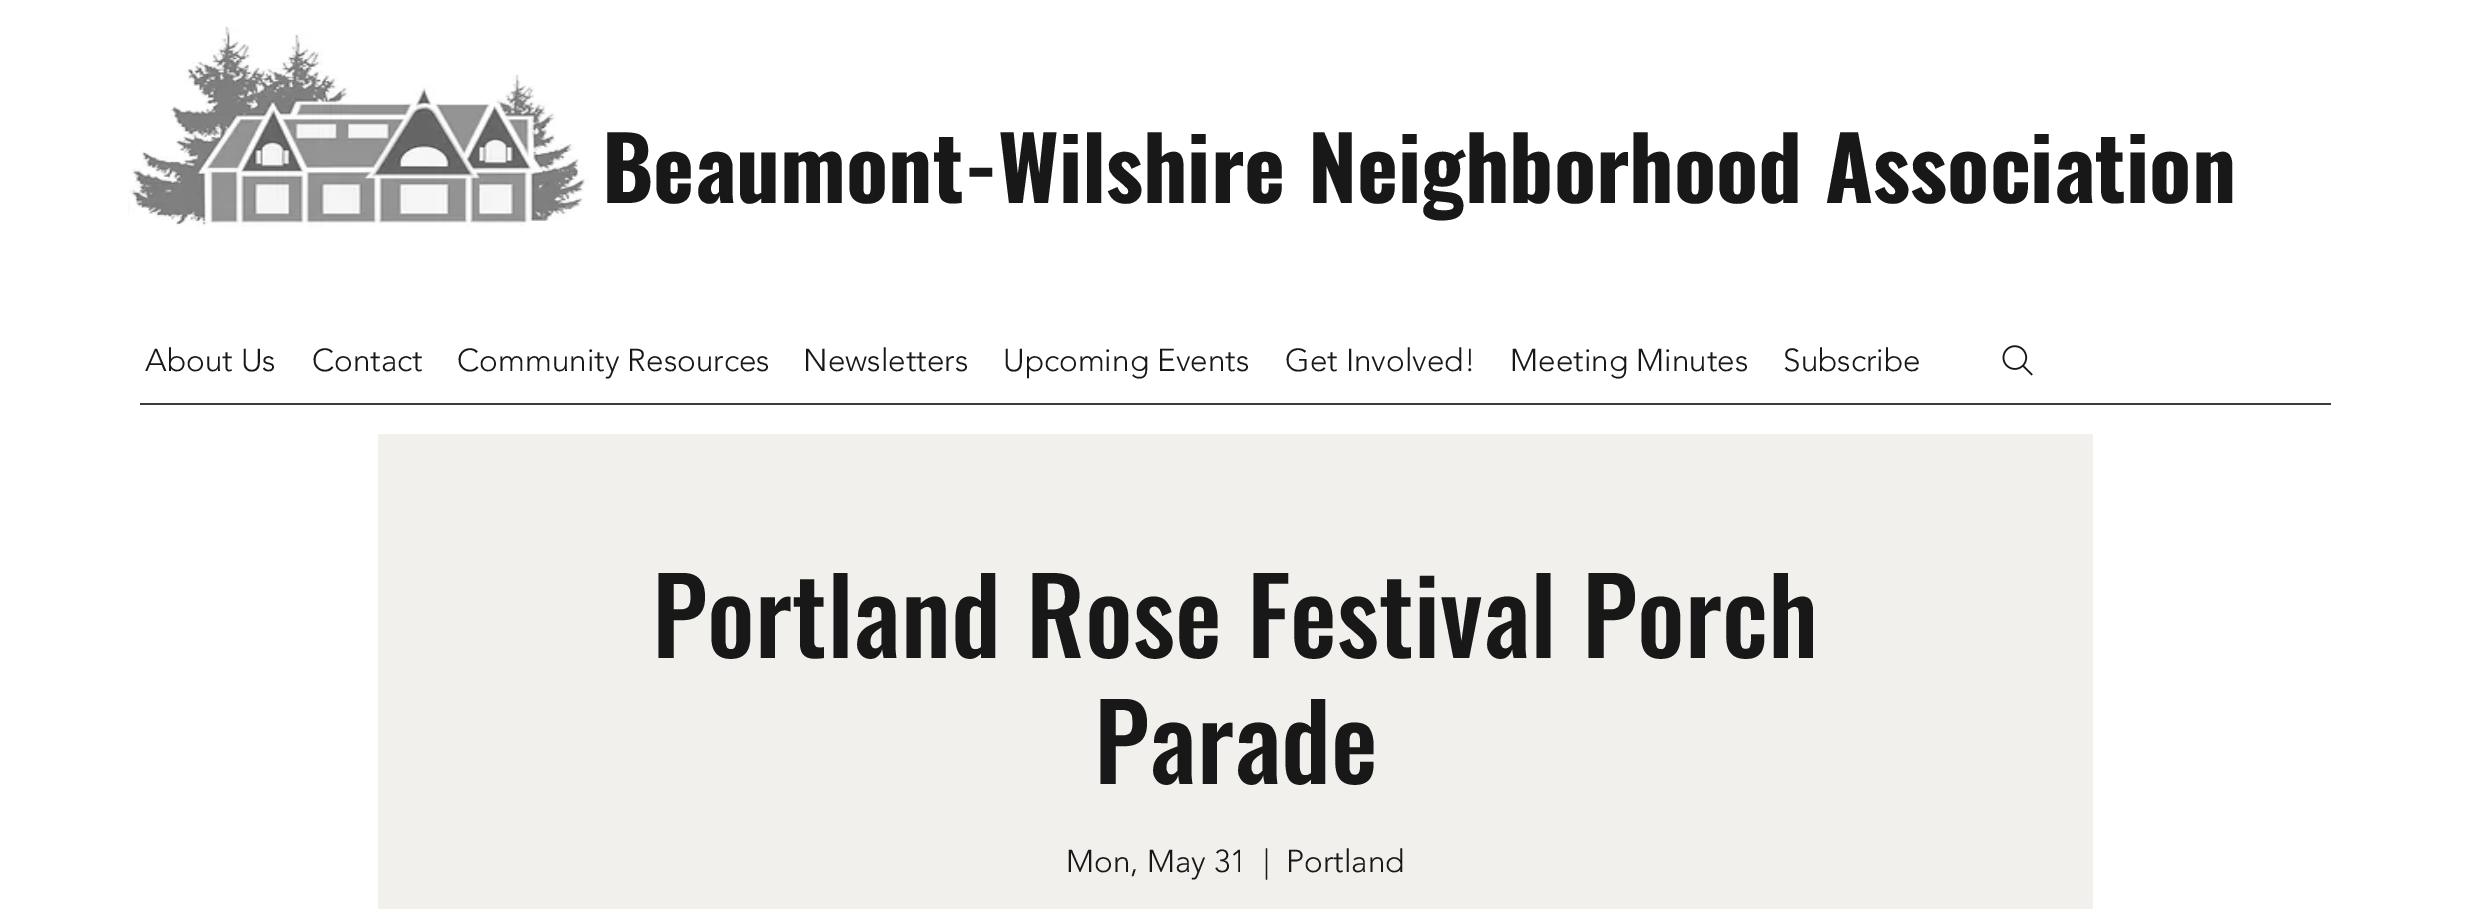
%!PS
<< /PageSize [2471 909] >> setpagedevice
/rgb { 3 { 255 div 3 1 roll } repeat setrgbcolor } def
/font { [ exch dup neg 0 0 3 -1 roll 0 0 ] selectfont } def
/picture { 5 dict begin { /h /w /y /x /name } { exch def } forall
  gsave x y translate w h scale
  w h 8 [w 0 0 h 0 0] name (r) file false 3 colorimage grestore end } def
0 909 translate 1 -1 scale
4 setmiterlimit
255 255 255 rgb
0 0 2471 909 rectfill
(img/1.rgb) 128 26 461 201 picture
(img/2.rgb) 2002 345 31 31 picture
59 59 59 rgb
140 403 2191 2 rectfill
241 240 236 rgb
378 434 1715 475 rectfill
/Oswald-Bold 87.5 font
24 24 24 rgb
602 203 moveto (Beaumont-Wilshire Neighborhood Association) show
/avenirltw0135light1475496-Light 31.5 font
[
  [(About Us) 145 371]
  [(Contact) 312 371]
  [(Community Resources) 457 371]
  [(Newsletters) 803 371]
  [(Upcoming Events) 1003 371]
  [(Get Involved!) 1285 371]
  [(Meeting Minutes) 1510 371]
  [(Subscribe) 1783 371]
] { aload pop moveto show } forall
/Oswald-Medium 105 font
652 658 moveto (Portland Rose Festival Porch) show
1094 784 moveto (Parade) show
/avenirltw0135light1475496-Light 31.5 font
[
  [(Mon, May 31) 1066 872]
  [(|) 1263 872]
  [(Portland) 1286 872]
] { aload pop moveto show } forall
showpage
